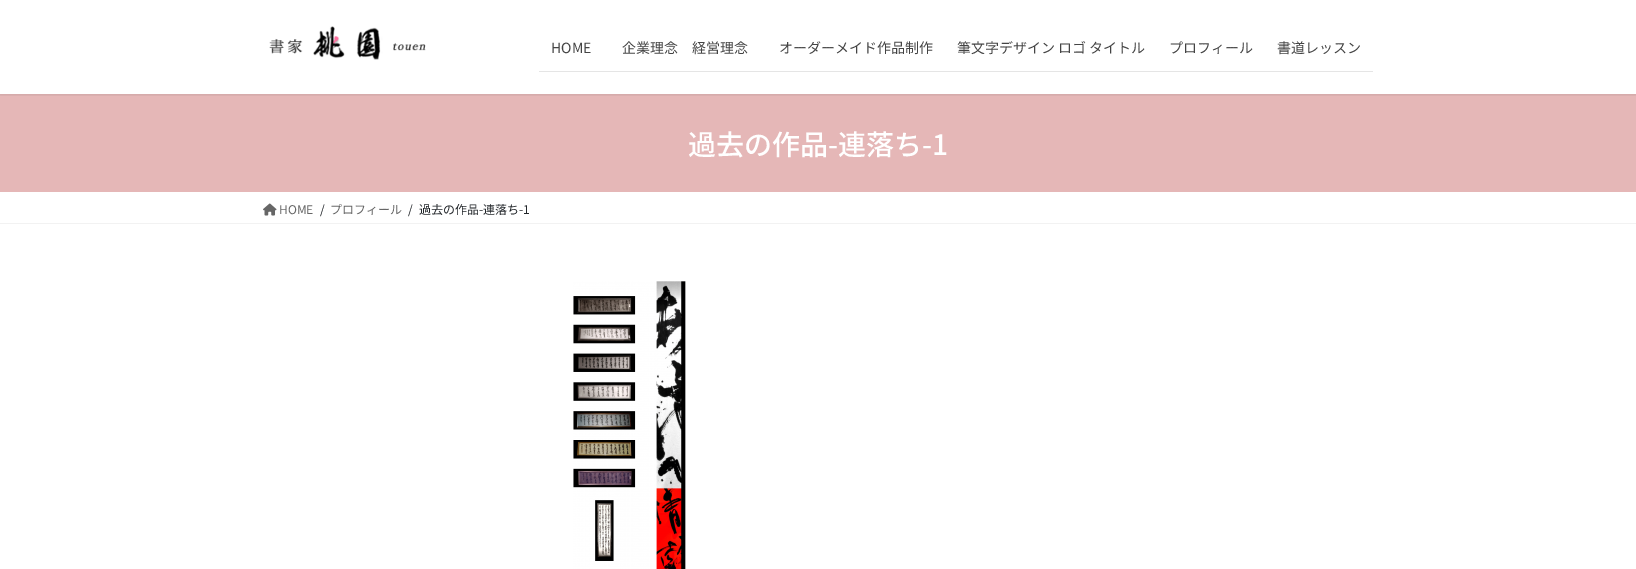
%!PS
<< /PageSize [1636 569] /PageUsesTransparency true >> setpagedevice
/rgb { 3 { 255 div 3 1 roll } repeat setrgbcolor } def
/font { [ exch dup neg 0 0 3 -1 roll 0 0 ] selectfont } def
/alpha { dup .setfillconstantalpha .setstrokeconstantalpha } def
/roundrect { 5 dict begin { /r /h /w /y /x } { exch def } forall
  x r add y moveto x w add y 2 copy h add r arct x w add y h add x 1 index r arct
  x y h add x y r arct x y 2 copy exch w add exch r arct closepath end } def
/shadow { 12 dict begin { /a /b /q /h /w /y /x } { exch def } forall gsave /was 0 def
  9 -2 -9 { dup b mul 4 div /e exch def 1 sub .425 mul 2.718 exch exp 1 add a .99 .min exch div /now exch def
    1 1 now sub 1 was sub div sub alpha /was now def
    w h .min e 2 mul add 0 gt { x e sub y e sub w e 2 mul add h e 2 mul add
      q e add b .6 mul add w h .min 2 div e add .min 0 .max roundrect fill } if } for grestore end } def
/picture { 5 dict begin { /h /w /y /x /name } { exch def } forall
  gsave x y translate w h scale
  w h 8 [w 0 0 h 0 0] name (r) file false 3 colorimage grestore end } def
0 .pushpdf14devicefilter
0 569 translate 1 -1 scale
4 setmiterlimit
255 255 255 rgb
0 0 1636 569 rectfill
229 183 183 rgb
0 94 1636 98 rectfill
gsave
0 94 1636 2 rectclip
0 0 0 rgb
0 1 1636 94 0 1.5 0.1 shadow
grestore
(img/1.rgb) 269 26 157 34 picture
229 229 229 rgb
539 71 834 1 rectfill
242 242 242 rgb
0 223 1636 1 rectfill
(img/2.rgb) 263 203 14 13 picture
(img/3.rgb) 573 281 113 288 picture
/NotoSansJP-Regular 14 font
68 68 68 rgb
[
  [(HOME) 551 53]
  [(企業理念　経営理念) 622 53]
  [(オーダーメイド作品制作) 779 53]
  [(筆文字デザイン ロゴ タイトル) 957 53]
  [(プロフィール) 1169 53]
  [(書道レッスン) 1277 53]
] { aload pop moveto show } forall
/NotoSansJP-Medium 28 font
255 255 255 rgb
688 155 moveto (過去の作品-連落ち-1) show
/NotoSansJP-Regular 12 font
102 102 102 rgb
279 214 moveto (HOME) show
33 37 41 rgb
320 214 moveto (/) show
102 102 102 rgb
330 214 moveto (プロフィール) show
33 37 41 rgb
408 214 moveto (/) show
419 214 moveto (過去の作品-連落ち-1) show
.poppdf14devicefilter showpage
